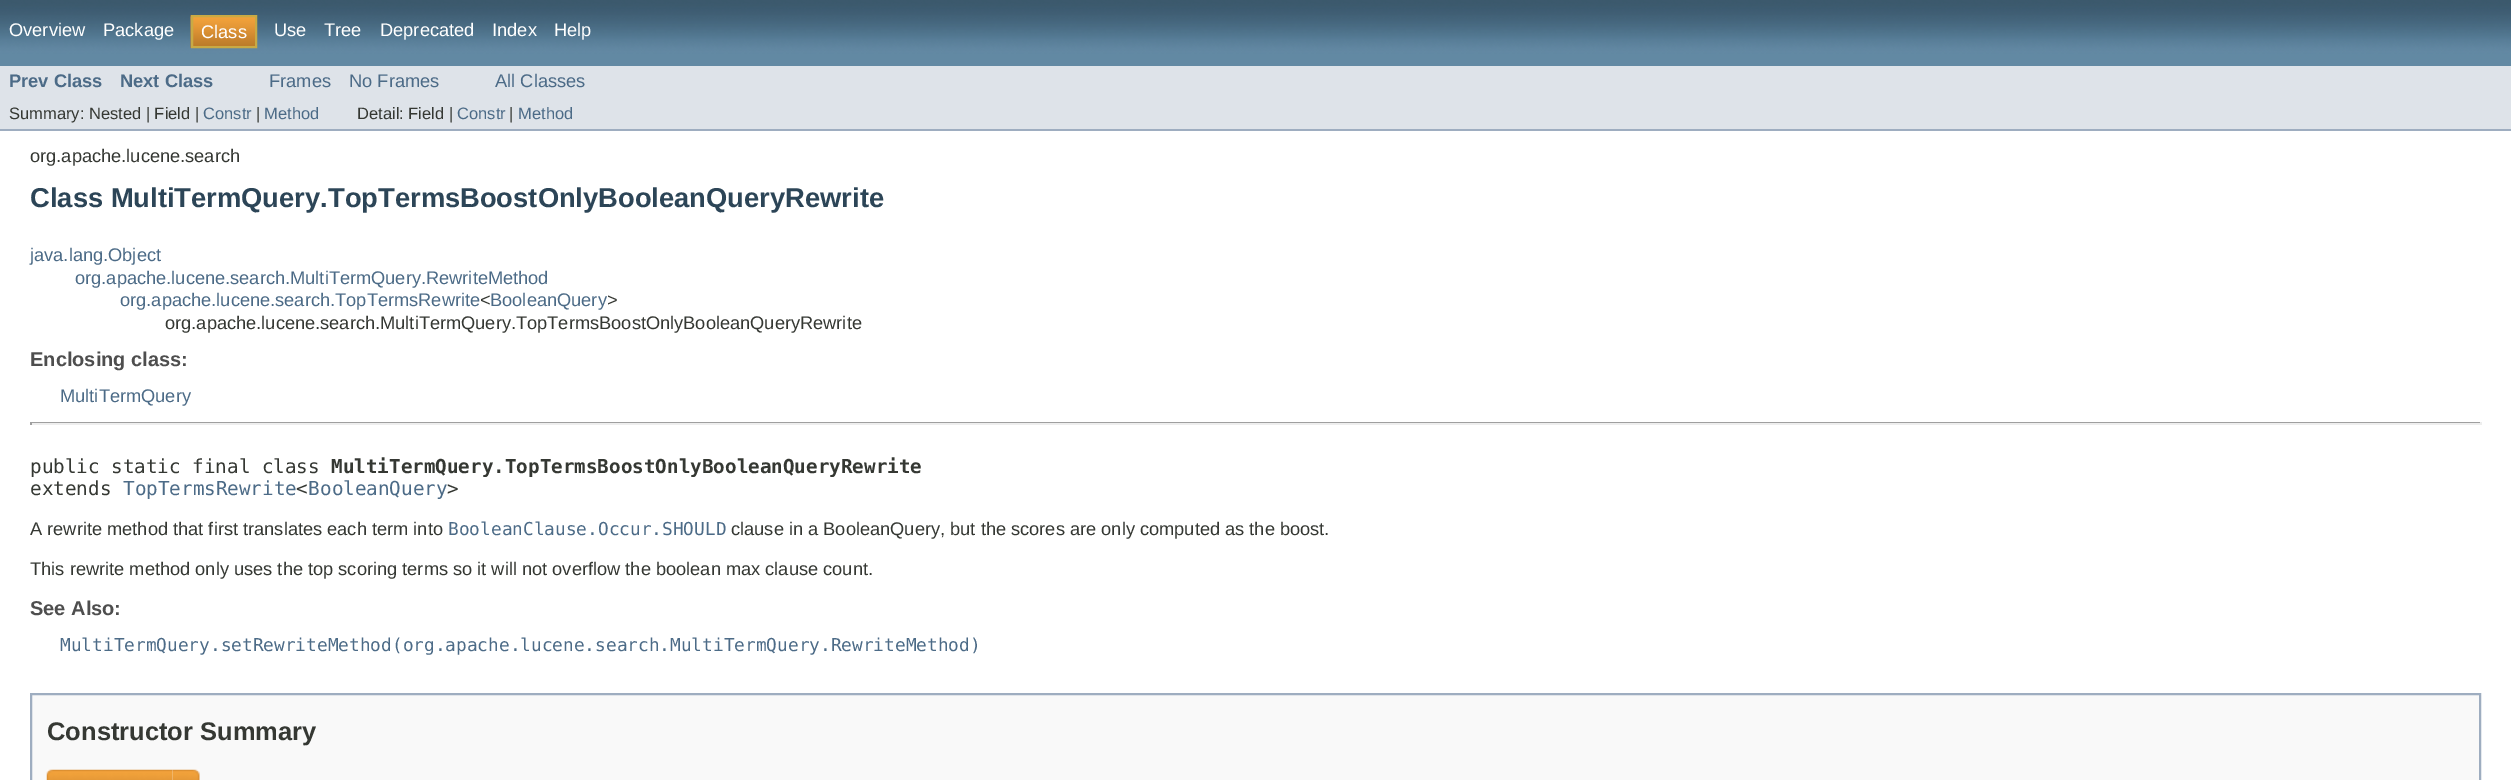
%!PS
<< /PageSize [2511 780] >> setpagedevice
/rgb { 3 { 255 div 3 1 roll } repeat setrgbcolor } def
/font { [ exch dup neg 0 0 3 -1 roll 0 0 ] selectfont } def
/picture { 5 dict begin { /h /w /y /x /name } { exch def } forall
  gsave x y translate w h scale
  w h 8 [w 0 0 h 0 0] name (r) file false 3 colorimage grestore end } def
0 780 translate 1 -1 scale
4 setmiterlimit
255 255 255 rgb
0 0 2511 780 rectfill
(img/1.rgb) 0 0 2511 66 picture
(img/2.rgb) 190 15 65 33 picture
201 170 68 rgb
2 setlinewidth
192 16 64 31 rectstroke
[
  [0 66 2511 63 222 227 233]
  [0 129 2511 2 158 173 192]
  [30 422 2451 1 159 159 159]
  [2480 422 2 3 238 238 238]
  [30 423 2451 2 238 238 238]
  [30 422 2 3 159 159 159]
] { aload pop rgb rectfill } forall
249 249 249 rgb
31 694 moveto 2480 694 lineto 2480 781 lineto 31 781 lineto closepath gsave fill grestore
158 173 192 rgb
stroke
(img/3.rgb) 46 769 127 11 picture
(img/4.rgb) 172 769 28 11 picture
/LiberationSans-Regular 18.25 font
255 255 255 rgb
[
  [(Overview) 9 36]
  [(Package) 103 36]
  [(Class) 201 38]
  [(Use) 274 36]
  [(Tree) 324 36]
  [(Deprecated) 380 36]
  [(Index) 492 36]
  [(Help) 554 36]
] { aload pop moveto show } forall
/LiberationSans-Bold 18.25 font
76 107 135 rgb
9 87 moveto (Prev Class) show
120 87 moveto (Next Class) show
/LiberationSans-Regular 18.25 font
[
  [(Frames) 269 87]
  [(No Frames) 349 87]
  [(All Classes) 495 87]
] { aload pop moveto show } forall
/LiberationSans-Regular 16.5 font
53 56 51 rgb
9 119 moveto (Summary: Nested | Field |) show
76 107 135 rgb
203 119 moveto (Constr) show
53 56 51 rgb
256 119 moveto (|) show
76 107 135 rgb
264 119 moveto (Method) show
53 56 51 rgb
357 119 moveto (Detail: Field |) show
76 107 135 rgb
457 119 moveto (Constr) show
53 56 51 rgb
509 119 moveto (|) show
76 107 135 rgb
518 119 moveto (Method) show
/LiberationSans-Regular 18.25 font
53 56 51 rgb
30 162 moveto (org.apache.lucene.search) show
/LiberationSans-Bold 27.35 font
44 69 87 rgb
30 207 moveto (Class MultiTermQuery.TopTermsBoostOnlyBooleanQueryRewrite) show
/LiberationSans-Regular 18.25 font
76 107 135 rgb
[
  [(java.lang.Object) 30 261]
  [(org.apache.lucene.search.MultiTermQuery.RewriteMethod) 75 284]
  [(org.apache.lucene.search.TopTermsRewrite) 120 306]
] { aload pop moveto show } forall
53 56 51 rgb
480 306 moveto (<) show
76 107 135 rgb
490 306 moveto (BooleanQuery) show
53 56 51 rgb
607 306 moveto (>) show
165 329 moveto (org.apache.lucene.search.MultiTermQuery.TopTermsBoostOnlyBooleanQueryRewrite) show
/LiberationSans-Bold 20 font
78 78 78 rgb
30 366 moveto (Enclosing class:) show
/LiberationSans-Regular 18.25 font
76 107 135 rgb
60 402 moveto (MultiTermQuery) show
/DejaVuSansMono-Regular 19.25 font
53 56 51 rgb
30 473 moveto (public static final class) show
/DejaVuSansMono-Bold 19.25 font
331 473 moveto (MultiTermQuery.TopTermsBoostOnlyBooleanQueryRewrite) show
/DejaVuSansMono-Regular 19.25 font
30 495 moveto (extends) show
76 107 135 rgb
123 495 moveto (TopTermsRewrite BooleanQuery) show
53 56 51 rgb
296 495 moveto (<) show
447 495 moveto (>) show
/LiberationSans-Regular 18.25 font
30 535 moveto (A rewrite method that first translates each term into) show
/DejaVuSansMono-Regular 17.78 font
76 107 135 rgb
448 535 moveto (BooleanClause.Occur.SHOULD) show
/LiberationSans-Regular 18.25 font
53 56 51 rgb
731 535 moveto (clause in a BooleanQuery, but the scores are only computed as the boost.) show
30 575 moveto (This rewrite method only uses the top scoring terms so it will not overflow the boolean max clause count.) show
/LiberationSans-Bold 20 font
78 78 78 rgb
30 615 moveto (See Also:) show
/DejaVuSansMono-Regular 17.78 font
76 107 135 rgb
60 651 moveto (MultiTermQuery.setRewriteMethod\(org.apache.lucene.search.MultiTermQuery.RewriteMethod\)) show
/LiberationSans-Bold 25.5 font
53 56 51 rgb
47 740 moveto (Constructor Summary) show
showpage
